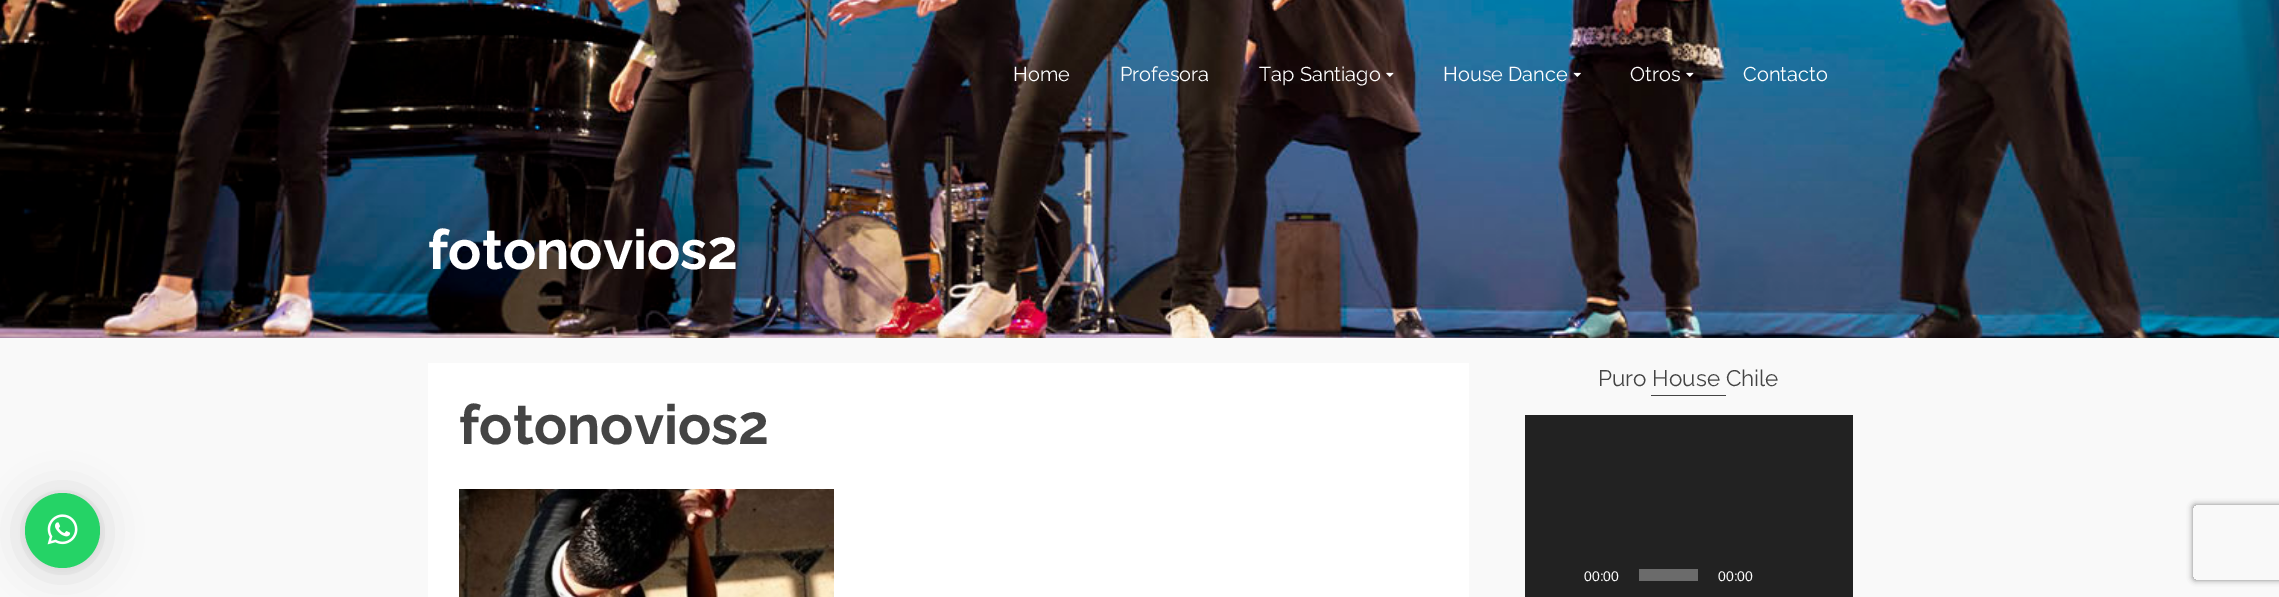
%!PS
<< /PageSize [2279 597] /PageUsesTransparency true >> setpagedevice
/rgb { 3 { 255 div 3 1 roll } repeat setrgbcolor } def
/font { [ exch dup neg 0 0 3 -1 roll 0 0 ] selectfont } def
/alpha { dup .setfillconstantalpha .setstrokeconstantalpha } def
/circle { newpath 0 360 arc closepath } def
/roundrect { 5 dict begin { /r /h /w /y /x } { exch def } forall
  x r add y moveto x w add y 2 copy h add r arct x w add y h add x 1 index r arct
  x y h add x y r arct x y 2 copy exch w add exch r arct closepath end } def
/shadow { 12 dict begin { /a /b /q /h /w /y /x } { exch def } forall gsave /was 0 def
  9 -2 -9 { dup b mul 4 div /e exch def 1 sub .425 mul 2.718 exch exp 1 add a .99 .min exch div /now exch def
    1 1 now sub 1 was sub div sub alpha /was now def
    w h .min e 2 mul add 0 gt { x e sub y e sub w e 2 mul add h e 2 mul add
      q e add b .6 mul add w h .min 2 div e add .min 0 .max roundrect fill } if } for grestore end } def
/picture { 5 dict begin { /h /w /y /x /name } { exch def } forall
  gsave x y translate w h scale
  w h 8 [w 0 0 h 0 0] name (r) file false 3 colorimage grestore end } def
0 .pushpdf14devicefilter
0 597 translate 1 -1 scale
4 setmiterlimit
249 249 249 rgb
0 0 2279 597 rectfill
(img/5.rgb) 0 0 2279 338 picture
(img/1.rgb) 1386 72 8 5 picture
(img/2.rgb) 1573 72 8 5 picture
(img/3.rgb) 1686 72 8 5 picture
0 0 0 rgb
25 495 75 75 37.5 20 0.16 shadow
25 494 75 75 37.5 4 0.06 shadow
37 211 102 rgb
62.5 530.5 37.5 circle fill
(img/4.rgb) 47 514 31 31 picture
255 255 255 rgb
428 363 1041 234 rectfill
(img/6.rgb) 459 489 375 108 picture
[
  [1651 395 75 1 68 68 68]
  [1525 415 328 182 34 34 34]
  [1639 569 59 12 107 107 107]
] { aload pop rgb rectfill } forall
gsave
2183 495 moveto 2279 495 lineto 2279 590 lineto 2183 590 lineto closepath 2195.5 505 moveto 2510.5 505 lineto 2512 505 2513 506 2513 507.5 curveto 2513 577.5 lineto 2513 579 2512 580 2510.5 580 curveto 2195.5 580 lineto 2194 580 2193 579 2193 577.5 curveto 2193 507.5 lineto 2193 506 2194 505 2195.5 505 curveto closepath eoclip newpath
128 128 128 rgb
2193 505 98 75 2.5 3 1 shadow
grestore
/Raleway-Regular 20 font
255 255 255 rgb
[
  [(Home) 1013 81]
  [(Profesora) 1120 81]
  [(Tap Santiago) 1259 81]
  [(House Dance) 1443 81]
  [(Otros) 1630 81]
  [(Contacto) 1743 81]
] { aload pop moveto show } forall
/Raleway-Bold 55 font
428 269 moveto (fotonovios2) show
68 68 68 rgb
459 444 moveto (fotonovios2) show
/Raleway-Regular 22.5 font
1598 386 moveto (Puro House Chile) show
/LiberationSans-Regular 14 font
255 255 255 rgb
1584 581 moveto (00:00) show
1718 581 moveto (00:00) show
.poppdf14devicefilter showpage
